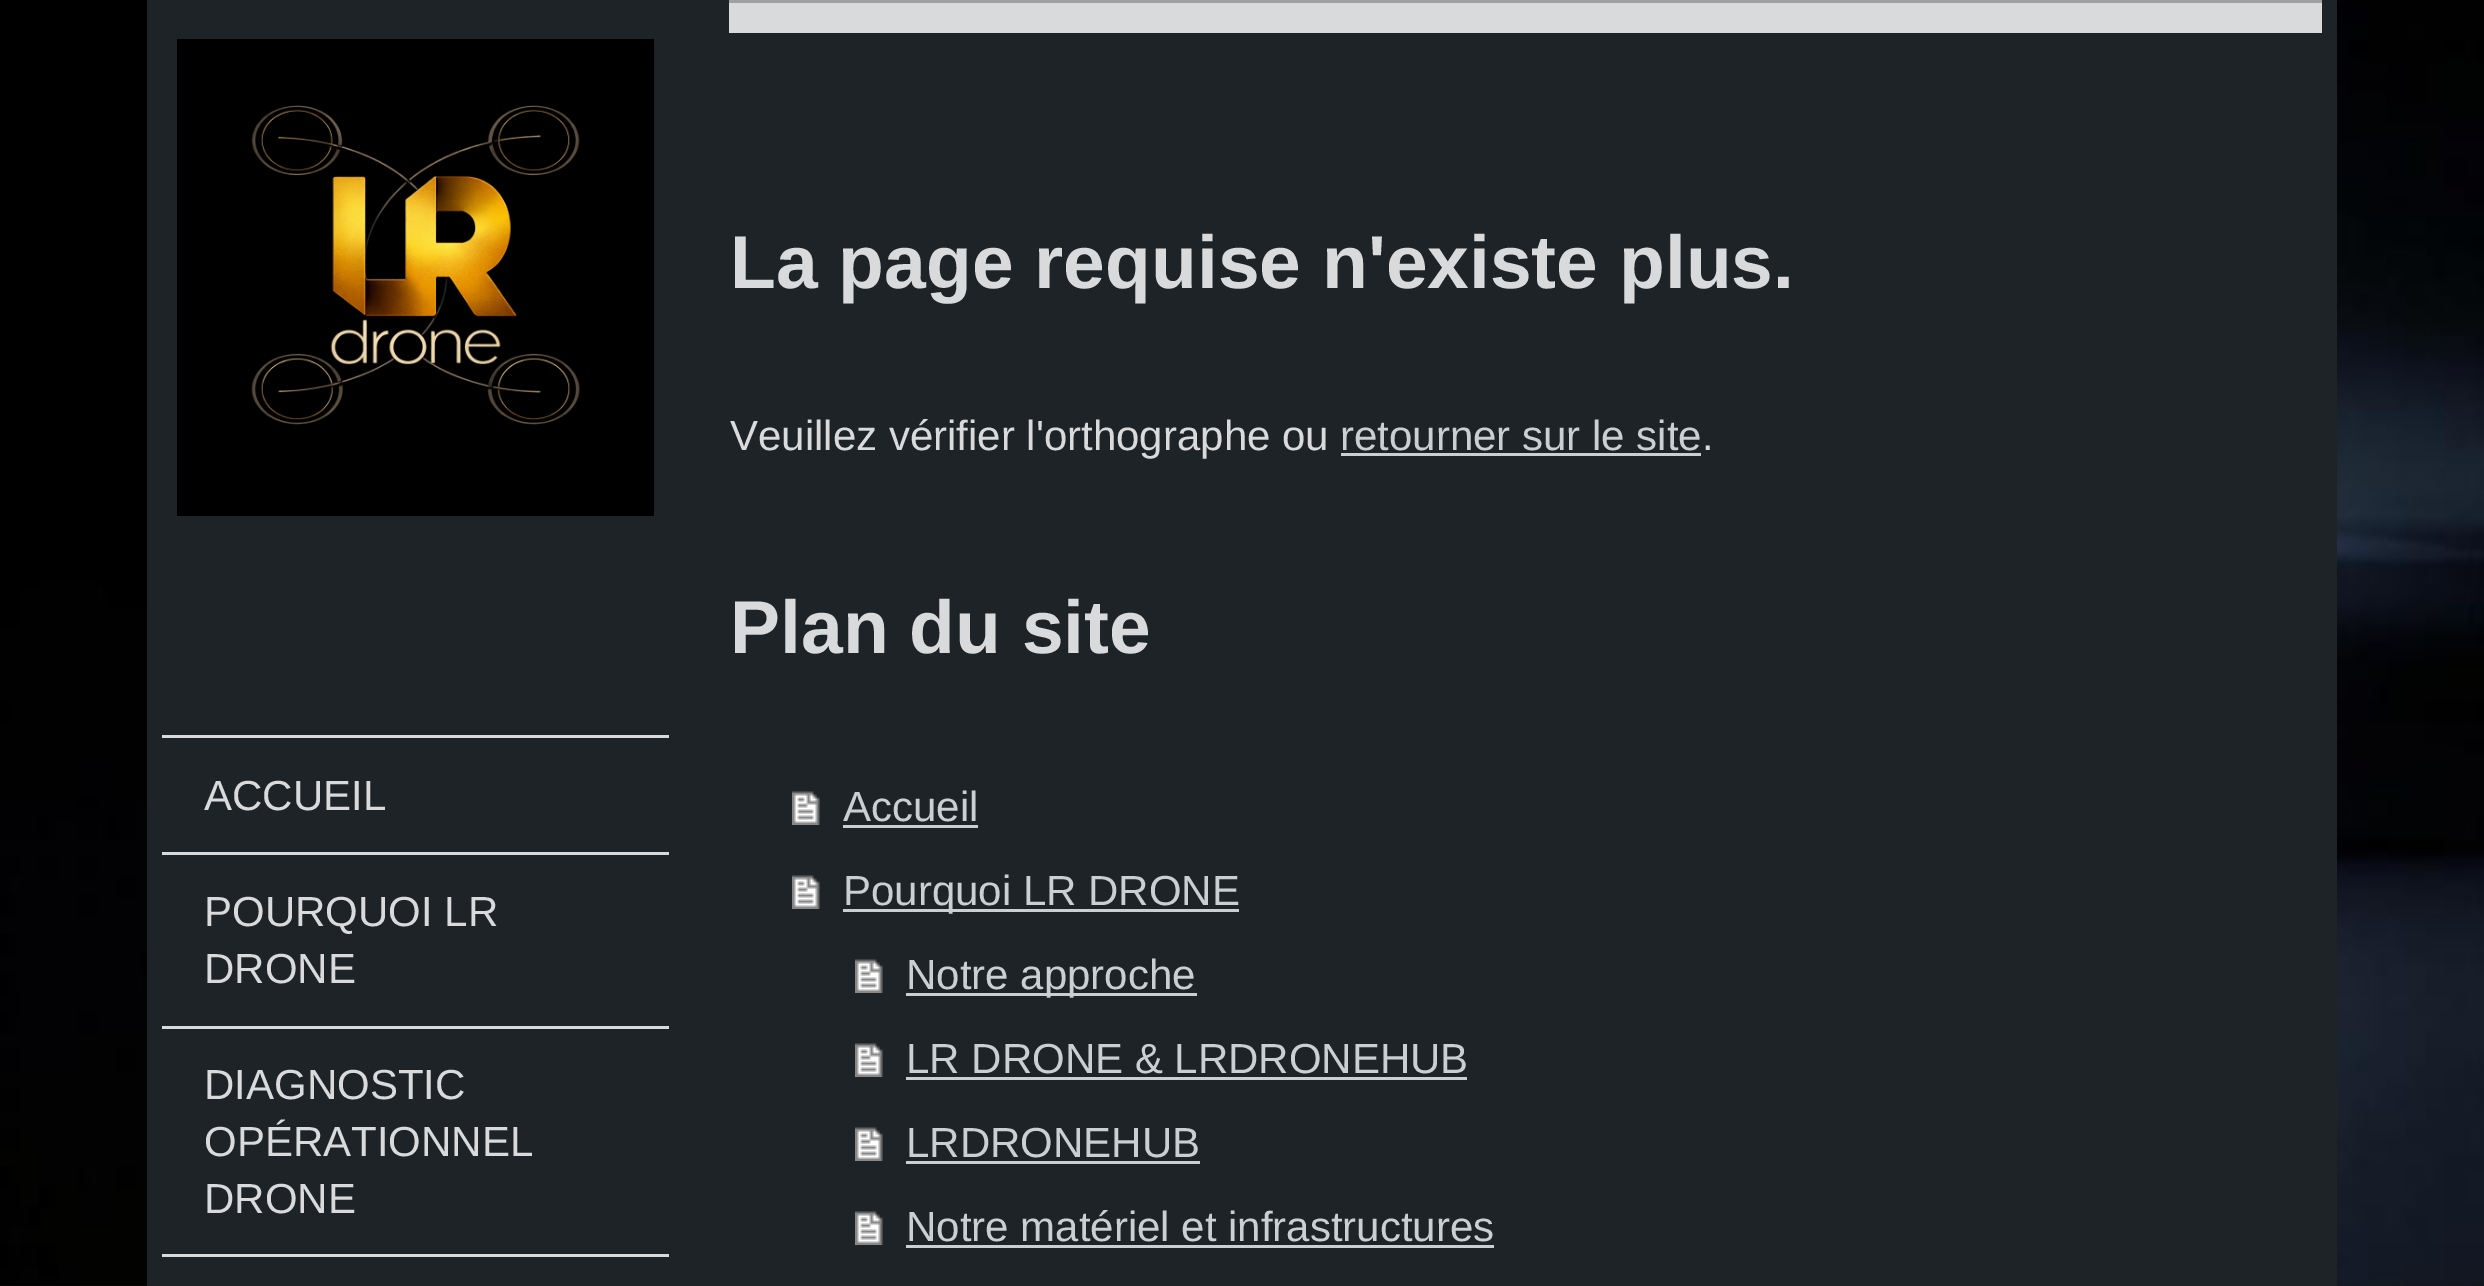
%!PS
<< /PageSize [2484 1286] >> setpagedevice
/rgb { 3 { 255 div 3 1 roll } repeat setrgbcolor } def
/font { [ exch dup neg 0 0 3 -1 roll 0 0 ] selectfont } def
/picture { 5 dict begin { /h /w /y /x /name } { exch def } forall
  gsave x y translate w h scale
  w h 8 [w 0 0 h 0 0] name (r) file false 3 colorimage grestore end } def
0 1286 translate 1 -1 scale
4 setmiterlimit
255 255 255 rgb
0 0 2484 1286 rectfill
(img/1.rgb) 0 0 2484 1286 picture
30 35 39 rgb
147 0 2190 1286 rectfill
(img/2.rgb) 177 39 477 477 picture
[
  [162 735 507 3 216 218 220]
  [162 852 507 3 216 218 220]
  [162 1026 507 3 216 218 220]
  [162 1254 507 3 216 218 220]
  [729 3 1593 30 216 218 220]
  [729 0 1593 3 160 160 160]
  [1341 453 360 3 203 207 211]
] { aload pop rgb rectfill } forall
(img/3.rgb) 792 791 28 34 picture
843 825 135 3 rectfill
(img/3.rgb) 792 875 28 34 picture
843 909 396 3 rectfill
(img/3.rgb) 855 959 28 34 picture
906 993 291 3 rectfill
(img/3.rgb) 855 1043 28 34 picture
906 1077 561 3 rectfill
(img/3.rgb) 855 1127 28 34 picture
906 1161 294 3 rectfill
(img/3.rgb) 855 1211 28 34 picture
906 1245 588 3 rectfill
/LiberationSans-Regular 42 font
216 218 220 rgb
[
  [(ACCUEIL) 204 810]
  [(POURQUOI LR) 204 926]
  [(DRONE) 204 983]
  [(DIAGNOSTIC) 204 1099]
  [(OPÉRATIONNEL) 204 1156]
  [(DRONE) 204 1213]
] { aload pop moveto show } forall
/LiberationSans-Bold 75 font
730 288 moveto (La page requise n'existe plus.) show
/LiberationSans-Regular 42 font
730 450 moveto (Veuillez vérifier l'orthographe ou) show
203 207 211 rgb
1340 450 moveto (retourner sur le site) show
216 218 220 rgb
1702 450 moveto (.) show
/LiberationSans-Bold 75 font
730 653 moveto (Plan du site) show
/LiberationSans-Regular 42 font
203 207 211 rgb
[
  [(Accueil) 843 821]
  [(Pourquoi LR DRONE) 843 905]
  [(Notre approche) 906 989]
  [(LR DRONE & LRDRONEHUB) 906 1073]
  [(LRDRONEHUB) 906 1157]
  [(Notre matériel et infrastructures) 906 1241]
] { aload pop moveto show } forall
showpage
